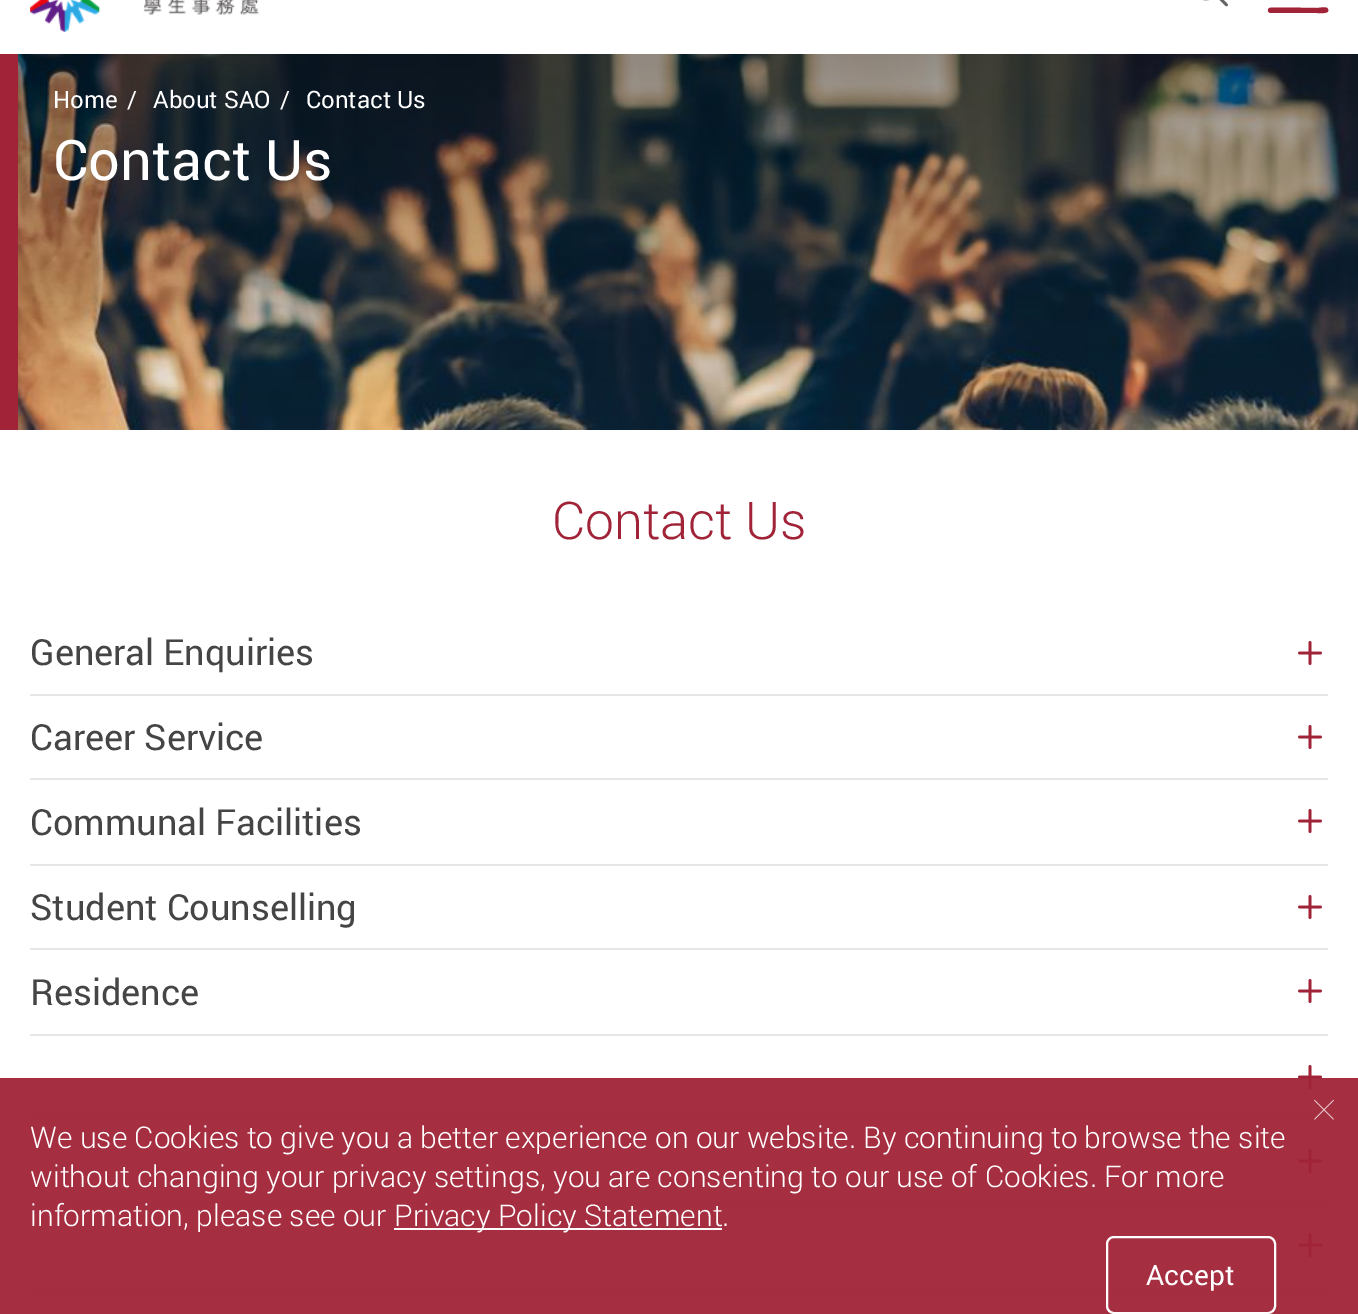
%!PS
<< /PageSize [1358 1314] /PageUsesTransparency true >> setpagedevice
/rgb { 3 { 255 div 3 1 roll } repeat setrgbcolor } def
/font { [ exch dup neg 0 0 3 -1 roll 0 0 ] selectfont } def
/alpha { dup .setfillconstantalpha .setstrokeconstantalpha } def
/roundrect { 5 dict begin { /r /h /w /y /x } { exch def } forall
  x r add y moveto x w add y 2 copy h add r arct x w add y h add x 1 index r arct
  x y h add x y r arct x y 2 copy exch w add exch r arct closepath end } def
/picture { 5 dict begin { /h /w /y /x /name } { exch def } forall
  gsave x y translate w h scale
  w h 8 [w 0 0 h 0 0] name (r) file false 3 colorimage grestore end } def
0 .pushpdf14devicefilter
0 1314 translate 1 -1 scale
4 setmiterlimit
255 255 255 rgb
0 0 1358 1314 rectfill
(img/1.rgb) 30 0 229 32 picture
(img/2.rgb) 1202 0 26 7 picture
160 35 55 rgb
1271 13 moveto 1317 13 lineto 1322 13 1330 14 1328 9 curveto 1327 6 1319 8 1317 8 curveto 1311 8 1271 7 1269 8 curveto 1267 10 1268 13 1271 13 curveto closepath fill
(img/3.rgb) 18 54 1340 376 picture
0 54 18 376 rectfill
231 230 230 rgb
30 694 1298 2 rectfill
(img/4.rgb) 1298 641 24 24 picture
30 778 1298 2 rectfill
(img/4.rgb) 1298 725 24 24 picture
30 864 1298 2 rectfill
(img/4.rgb) 1298 809 24 24 picture
30 948 1298 2 rectfill
(img/4.rgb) 1298 895 24 24 picture
30 1034 1298 2 rectfill
(img/4.rgb) 1298 979 24 24 picture
30 1118 1298 2 rectfill
(img/4.rgb) 1298 1065 24 24 picture
30 1202 1298 2 rectfill
(img/4.rgb) 1298 1149 24 24 picture
30 1288 1298 2 rectfill
(img/4.rgb) 1298 1233 24 24 picture
0.95 alpha
160 35 55 rgb
0 1078 1358 236 rectfill
1 alpha
(img/5.rgb) 1314 1099 20 21 picture
255 255 255 rgb
394 1228 328 2 rectfill
2 setlinewidth
1107 1237 168 76 7 roundrect stroke
/Roboto-Regular 24 font
[
  [(Home) 53 108]
  [(/) 127 108]
  [(About SAO) 153 108]
  [(/) 280 108]
  [(Contact Us) 306 108]
] { aload pop moveto show } forall
/Roboto-Regular 56 font
53 180 moveto (Contact Us) show
/Roboto-Light 52 font
160 35 55 rgb
552 539 moveto (Contact Us) show
/Roboto-Regular 36 font
69 69 69 rgb
[
  [(General Enquiries) 30 665]
  [(Career Service) 30 750]
  [(Communal Facilities) 30 835]
  [(Student Counselling) 30 920]
  [(Residence) 30 1005]
] { aload pop moveto show } forall
/Roboto-Light 30 font
255 255 255 rgb
[
  [(We use Cookies to give you a better experience on our website. By continuing to browse the site) 30 1148]
  [(without changing your privacy settings, you are consenting to our use of Cookies. For more) 30 1187]
  [(information, please see our) 30 1226]
  [(Privacy Policy Statement.) 394 1226]
] { aload pop moveto show } forall
/Roboto-Regular 28 font
1146 1285 moveto (Accept) show
.poppdf14devicefilter showpage
